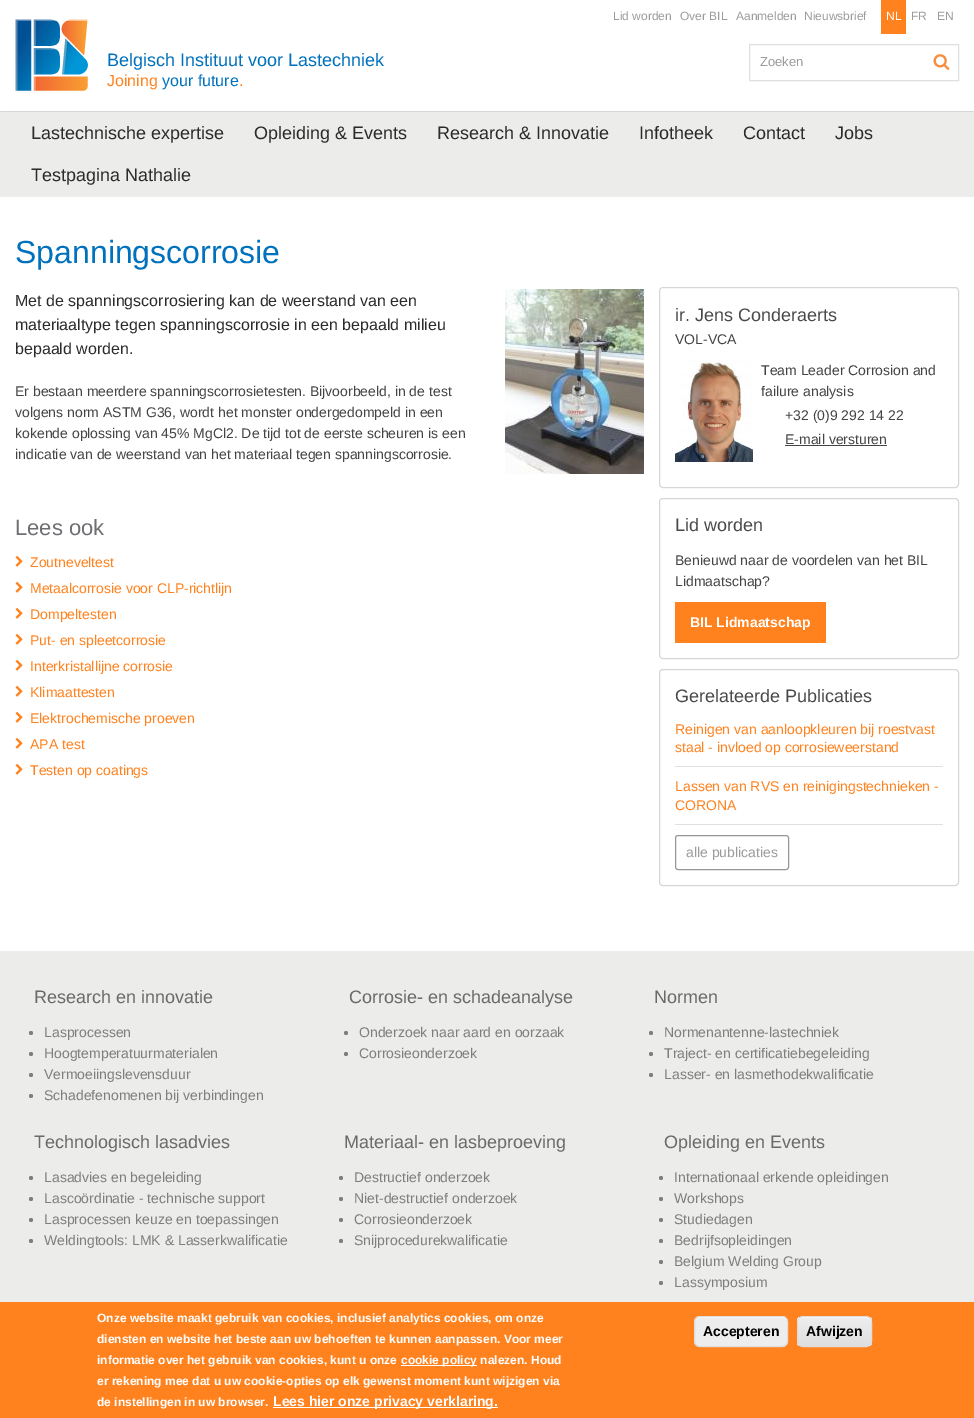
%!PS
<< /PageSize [974 1418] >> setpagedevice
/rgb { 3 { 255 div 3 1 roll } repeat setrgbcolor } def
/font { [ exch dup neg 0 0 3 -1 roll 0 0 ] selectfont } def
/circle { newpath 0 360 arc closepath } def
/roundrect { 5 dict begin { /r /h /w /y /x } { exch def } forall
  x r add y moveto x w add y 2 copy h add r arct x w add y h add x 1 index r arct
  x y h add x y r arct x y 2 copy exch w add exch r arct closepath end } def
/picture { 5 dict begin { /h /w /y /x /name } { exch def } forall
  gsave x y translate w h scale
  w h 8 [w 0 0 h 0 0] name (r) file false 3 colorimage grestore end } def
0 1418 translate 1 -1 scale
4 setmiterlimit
255 255 255 rgb
0 0 974 1418 rectfill
255 130 30 rgb
881 0 25 34 rectfill
224 224 224 rgb
749.5 44.5 209 36 rectstroke
(img/1.rgb) 933 54 17 16 picture
(img/2.rgb) 15 19 73 72 picture
236 236 234 rgb
0 111 974 86 rectfill
215 215 215 rgb
0 111 moveto 974 111 lineto 973 112 lineto 1 112 lineto closepath fill
(img/3.rgb) 505 289 139 185 picture
(img/4.rgb) 15 555 8 12 picture
(img/4.rgb) 15 581 8 12 picture
(img/4.rgb) 15 607 8 12 picture
(img/4.rgb) 15 633 8 12 picture
(img/4.rgb) 15 659 8 12 picture
(img/4.rgb) 15 685 8 12 picture
(img/4.rgb) 15 711 8 12 picture
(img/4.rgb) 15 737 8 12 picture
(img/4.rgb) 15 763 8 12 picture
659.5 287.5 299 200 3.5 roundrect stroke
(img/5.rgb) 675 360 78 102 picture
68 68 68 rgb
785 445 102 1 rectfill
215 215 215 rgb
659.5 498.5 299 160 3.5 roundrect stroke
255 130 30 rgb
675 602 151 41 rectfill
215 215 215 rgb
659.5 669.5 299 216 3.5 roundrect stroke
224 224 224 rgb
675 766 268 1 rectfill
675 824 268 1 rectfill
151 151 151 rgb
675.5 835.5 113 34 2.5 roundrect stroke
236 236 234 rgb
0 951 974 351 rectfill
126 126 126 rgb
31 1033 2 circle fill
31 1054 2 circle fill
31 1075 2 circle fill
31 1096 2 circle fill
346 1033 2 circle fill
346 1054 2 circle fill
651 1033 2 circle fill
651 1054 2 circle fill
651 1075 2 circle fill
31 1178 2 circle fill
31 1199 2 circle fill
31 1220 2 circle fill
31 1241 2 circle fill
341 1178 2 circle fill
341 1199 2 circle fill
341 1220 2 circle fill
341 1241 2 circle fill
661 1178 2 circle fill
661 1199 2 circle fill
661 1220 2 circle fill
661 1241 2 circle fill
661 1262 2 circle fill
661 1283 2 circle fill
[
  [0 1302 974 116 255 130 30]
  [401 1365 76 1 255 255 255]
  [273 1407 225 1 255 255 255]
] { aload pop rgb rectfill } forall
237 237 237 rgb
694 1316 94 31 6 roundrect fill
255 255 255 rgb
700 1318 moveto 782 1318 lineto 785 1318 787 1320 787 1323 curveto 787 1314 774 1317 768 1317 curveto 714 1317 lineto 708 1317 695 1314 695 1323 curveto 695 1320 697 1318 700 1318 curveto closepath fill
220 220 220 rgb
694.5 1316.5 93 30 5.5 roundrect stroke
gsave
797 1316 75 31 6 roundrect clip newpath
gsave 797 1317 moveto 872 1317 lineto 872 1346 lineto 797 1346 lineto closepath clip newpath
<< /ShadingType 2 /ColorSpace /DeviceRGB /Coords [835 1317 835 1346] /Extend [true true] /Function << /FunctionType 3 /Domain [0 1] /Functions [<< /FunctionType 2 /Domain [0 1] /C0 [0.929 0.929 0.929] /C1 [0.929 0.929 0.929] /N 1 >> << /FunctionType 2 /Domain [0 1] /C0 [0.929 0.929 0.929] /C1 [0.875 0.875 0.875] /N 1 >>] /Bounds [0.05] /Encode [0 1 0 1] >> >> shfill grestore
grestore
255 255 255 rgb
803 1318 moveto 866 1318 lineto 869 1318 871 1320 871 1323 curveto 871 1315 861 1317 856 1317 curveto 814 1317 lineto 808 1317 798 1315 798 1323 curveto 798 1320 800 1318 803 1318 curveto closepath fill
220 220 220 rgb
797.5 1316.5 74 30 5.5 roundrect stroke
/LiberationSans-Regular 12 font
155 155 155 rgb
[
  [(Lid worden) 613 20]
  [(Over BIL) 680 20]
  [(Aanmelden) 736 20]
  [(Nieuwsbrief) 804 20]
] { aload pop moveto show } forall
255 255 255 rgb
886 20 moveto (NL) show
155 155 155 rgb
911 20 moveto (FR) show
937 20 moveto (EN) show
/LiberationSans-Regular 13 font
760 66 moveto (Zoeken) show
/LiberationSans-Regular 18 font
0 113 189 rgb
107 66 moveto (Belgisch Instituut voor Lastechniek) show
/LiberationSans-Regular 16 font
255 130 30 rgb
107 86 moveto (Joining) show
0 113 189 rgb
162 86 moveto (your future) show
255 130 30 rgb
239 86 moveto (.) show
/LiberationSans-Regular 18 font
43 43 43 rgb
[
  [(Lastechnische expertise) 31 139]
  [(Opleiding & Events) 254 139]
  [(Research & Innovatie) 437 139]
  [(Infotheek) 639 139]
  [(Contact) 743 139]
  [(Jobs) 835 139]
  [(Testpagina Nathalie) 31 181]
] { aload pop moveto show } forall
/LiberationSans-Regular 32 font
0 113 189 rgb
15 263 moveto (Spanningscorrosie) show
/LiberationSans-Regular 16 font
43 43 43 rgb
[
  [(Met de spanningscorrosiering kan de weerstand van een) 15 306]
  [(materiaaltype tegen spanningscorrosie in een bepaald milieu) 15 330]
  [(bepaald worden.) 15 354]
] { aload pop moveto show } forall
/LiberationSans-Regular 14 font
68 68 68 rgb
[
  [(Er bestaan meerdere spanningscorrosietesten. Bijvoorbeeld, in de test) 15 396]
  [(volgens norm ASTM G36, wordt het monster ondergedompeld in een) 15 417]
  [(kokende oplossing van 45% MgCl2. De tijd tot de eerste scheuren is een) 15 438]
  [(indicatie van de weerstand van het materiaal tegen spanningscorrosie.) 15 459]
] { aload pop moveto show } forall
/LiberationSans-Regular 22 font
109 110 113 rgb
15 535 moveto (Lees ook) show
/LiberationSans-Regular 14 font
255 130 30 rgb
[
  [(Zoutneveltest) 30 567]
  [(Metaalcorrosie voor CLP-richtlijn) 30 593]
  [(Dompeltesten) 30 619]
  [(Put- en spleetcorrosie) 30 645]
  [(Interkristallijne corrosie) 30 671]
  [(Klimaattesten) 30 697]
  [(Elektrochemische proeven) 30 723]
  [(APA test) 30 749]
  [(Testen op coatings) 30 775]
] { aload pop moveto show } forall
/LiberationSans-Regular 18 font
74 74 74 rgb
675 321 moveto (ir. Jens Conderaerts) show
/LiberationSans-Regular 14 font
68 68 68 rgb
[
  [(VOL-VCA) 675 344]
  [(Team Leader Corrosion and) 761 375]
  [(failure analysis) 761 396]
  [(+32 \(0\)9 292 14 22) 785 420]
  [(E-mail versturen) 785 444]
] { aload pop moveto show } forall
/LiberationSans-Regular 18 font
74 74 74 rgb
675 531 moveto (Lid worden) show
/LiberationSans-Regular 14 font
68 68 68 rgb
675 565 moveto (Benieuwd naar de voordelen van het BIL) show
675 586 moveto (Lidmaatschap?) show
/LiberationSans-Bold 14 font
255 255 255 rgb
690 627 moveto (BIL Lidmaatschap) show
/LiberationSans-Regular 18 font
74 74 74 rgb
675 702 moveto (Gerelateerde Publicaties) show
/LiberationSans-Regular 14 font
255 130 30 rgb
[
  [(Reinigen van aanloopkleuren bij roestvast) 675 734]
  [(staal - invloed op corrosieweerstand) 675 752]
  [(Lassen van RVS en reinigingstechnieken -) 675 791]
  [(CORONA) 675 810]
] { aload pop moveto show } forall
155 155 155 rgb
686 857 moveto (alle publicaties) show
/LiberationSans-Regular 18 font
106 106 106 rgb
34 1003 moveto (Research en innovatie) show
/LiberationSans-Regular 14 font
126 126 126 rgb
[
  [(Lasprocessen) 44 1037]
  [(Hoogtemperatuurmaterialen) 44 1058]
  [(Vermoeiingslevensduur) 44 1079]
  [(Schadefenomenen bij verbindingen) 44 1100]
] { aload pop moveto show } forall
/LiberationSans-Regular 18 font
106 106 106 rgb
349 1003 moveto (Corrosie- en schadeanalyse) show
/LiberationSans-Regular 14 font
126 126 126 rgb
359 1037 moveto (Onderzoek naar aard en oorzaak) show
359 1058 moveto (Corrosieonderzoek) show
/LiberationSans-Regular 18 font
106 106 106 rgb
654 1003 moveto (Normen) show
/LiberationSans-Regular 14 font
126 126 126 rgb
[
  [(Normenantenne-lastechniek) 664 1037]
  [(Traject- en certificatiebegeleiding) 664 1058]
  [(Lasser- en lasmethodekwalificatie) 664 1079]
] { aload pop moveto show } forall
/LiberationSans-Regular 18 font
106 106 106 rgb
34 1148 moveto (Technologisch lasadvies) show
/LiberationSans-Regular 14 font
126 126 126 rgb
[
  [(Lasadvies en begeleiding) 44 1182]
  [(Lascoördinatie - technische support) 44 1203]
  [(Lasprocessen keuze en toepassingen) 44 1224]
  [(Weldingtools: LMK & Lasserkwalificatie) 44 1245]
] { aload pop moveto show } forall
/LiberationSans-Regular 18 font
106 106 106 rgb
344 1148 moveto (Materiaal- en lasbeproeving) show
/LiberationSans-Regular 14 font
126 126 126 rgb
[
  [(Destructief onderzoek) 354 1182]
  [(Niet-destructief onderzoek) 354 1203]
  [(Corrosieonderzoek) 354 1224]
  [(Snijprocedurekwalificatie) 354 1245]
] { aload pop moveto show } forall
/LiberationSans-Regular 18 font
106 106 106 rgb
664 1148 moveto (Opleiding en Events) show
/LiberationSans-Regular 14 font
126 126 126 rgb
[
  [(Internationaal erkende opleidingen) 674 1182]
  [(Workshops) 674 1203]
  [(Studiedagen) 674 1224]
  [(Bedrijfsopleidingen) 674 1245]
  [(Belgium Welding Group) 674 1266]
  [(Lassymposium) 674 1287]
] { aload pop moveto show } forall
/LiberationSans-Bold 12 font
255 255 255 rgb
[
  [(Onze website maakt gebruik van cookies, inclusief analytics cookies, om onze) 97 1322]
  [(diensten en website het beste aan uw behoeften te kunnen aanpassen. Voor meer) 97 1343]
  [(informatie over het gebruik van cookies, kunt u onze) 97 1364]
  [(cookie policy nalezen. Houd) 401 1364]
  [(er rekening mee dat u uw cookie-opties op elk gewenst moment kunt wijzigen via) 97 1385]
  [(de instellingen in uw browser.) 97 1406]
] { aload pop moveto show } forall
/LiberationSans-Bold 14 font
273 1406 moveto (Lees hier onze privacy verklaring.) show
0 0 0 rgb
703 1336 moveto (Accepteren) show
806 1336 moveto (Afwijzen) show
showpage
